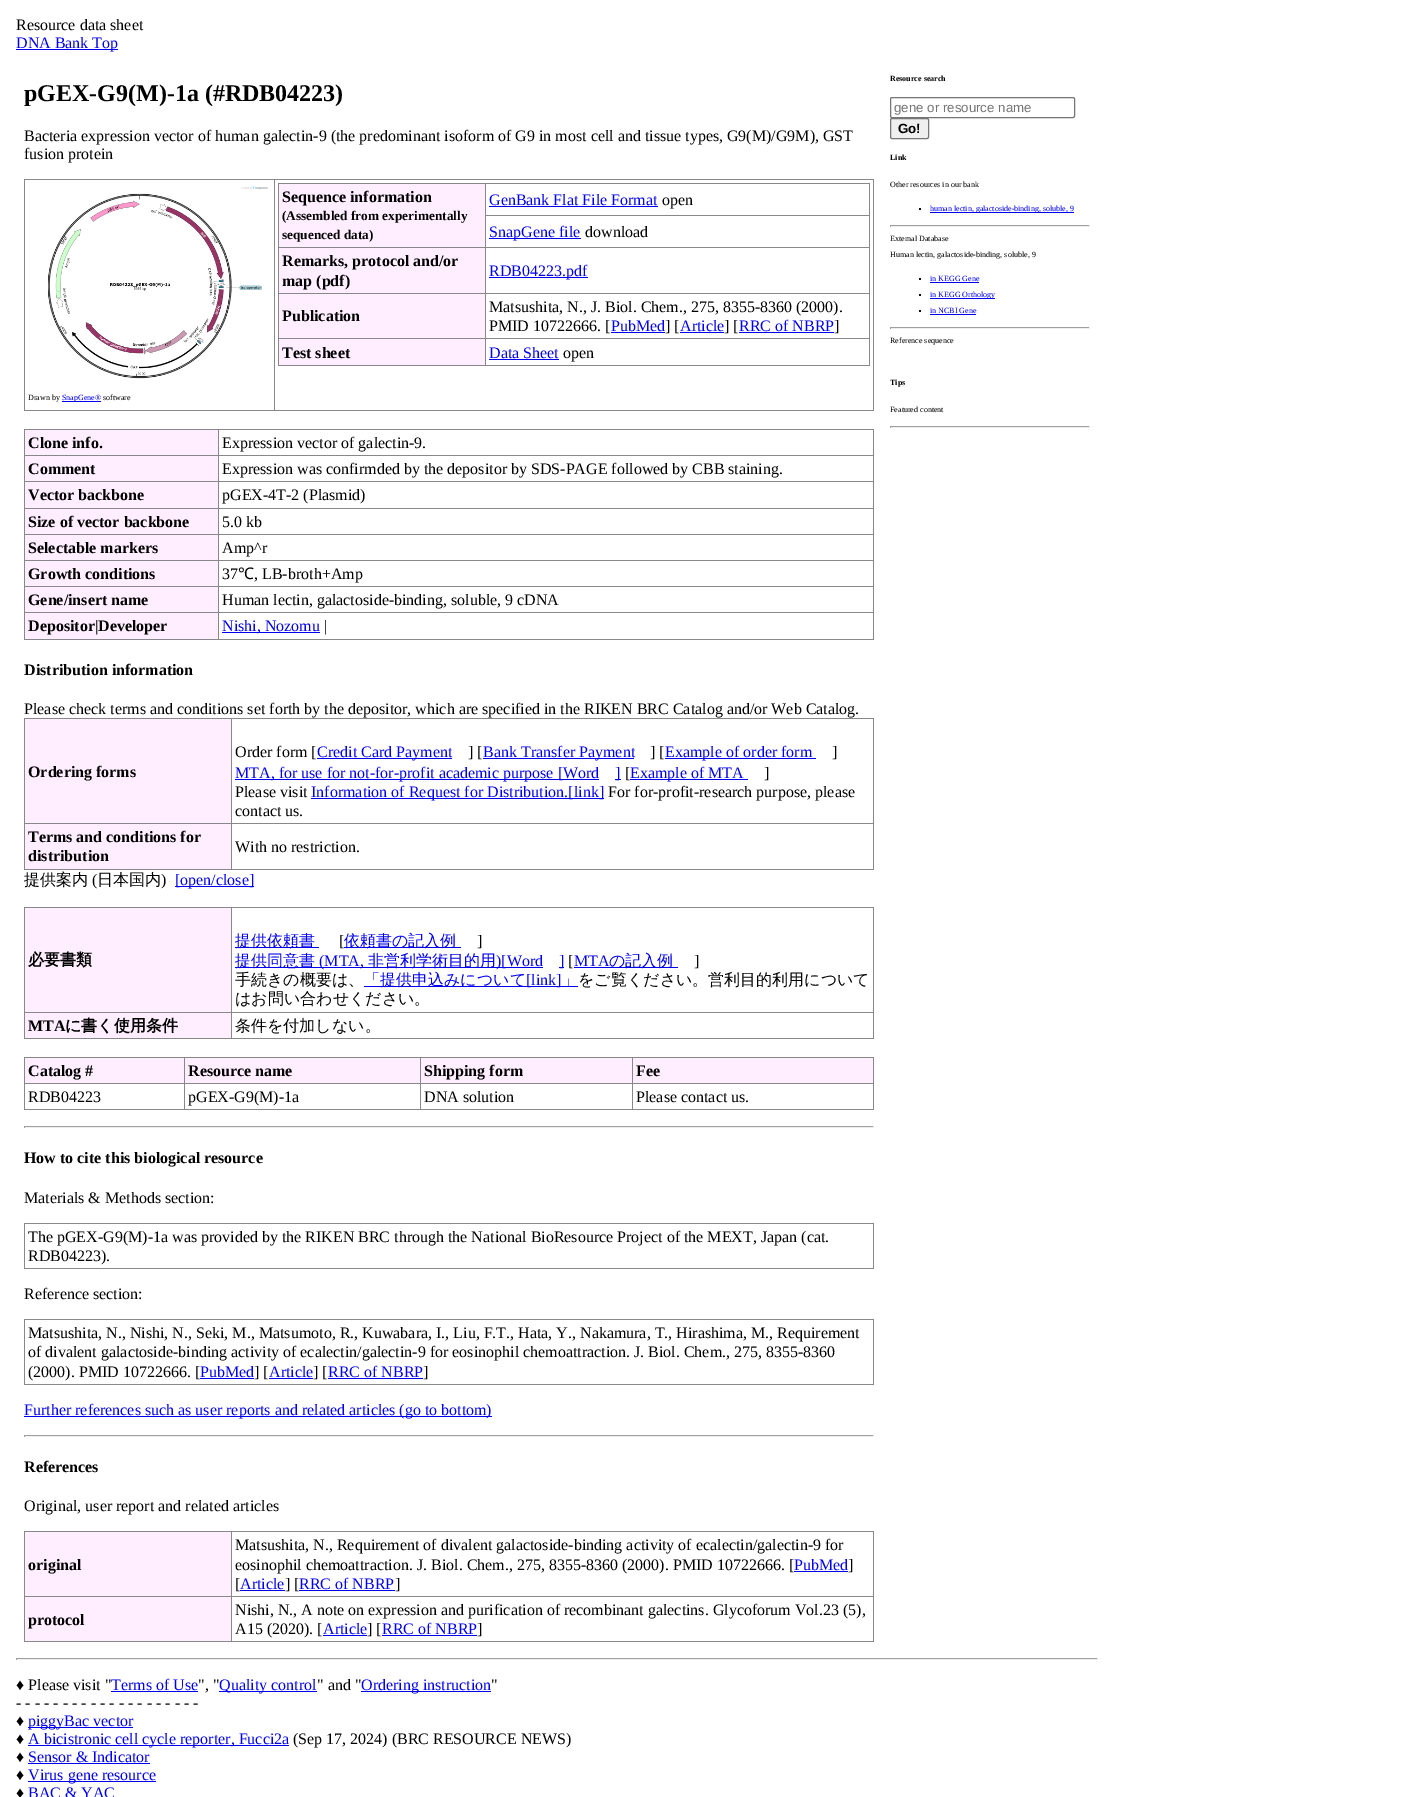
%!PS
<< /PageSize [1407 1797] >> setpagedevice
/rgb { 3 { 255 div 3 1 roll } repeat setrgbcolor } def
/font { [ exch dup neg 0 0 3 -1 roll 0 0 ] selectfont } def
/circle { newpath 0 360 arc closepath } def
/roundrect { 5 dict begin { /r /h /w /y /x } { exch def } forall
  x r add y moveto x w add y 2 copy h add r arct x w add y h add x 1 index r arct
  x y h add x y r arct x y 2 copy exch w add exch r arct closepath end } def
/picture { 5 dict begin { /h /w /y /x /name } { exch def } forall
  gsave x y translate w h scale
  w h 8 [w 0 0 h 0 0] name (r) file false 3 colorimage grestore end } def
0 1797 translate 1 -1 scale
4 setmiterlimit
255 255 255 rgb
0 0 1407 1797 rectfill
[
  [16 49 102 1 0 0 238]
  [24 179 850 1 136 136 136]
  [873 179 1 232 136 136 136]
  [24 410 850 1 136 136 136]
  [24 179 1 232 136 136 136]
  [274 179 1 232 136 136 136]
  [278 183 592 1 136 136 136]
  [869 183 1 183 136 136 136]
  [278 365 592 1 136 136 136]
  [278 183 1 183 136 136 136]
  [279 184 206 63 255 238 255]
  [489 206 169 1 0 0 238]
  [485 215 385 1 136 136 136]
  [485 247 385 1 136 136 136]
  [485 293 385 1 136 136 136]
  [485 338 385 1 136 136 136]
  [485 338 1 28 136 136 136]
  [278 338 208 1 136 136 136]
  [485 293 1 46 136 136 136]
  [278 293 208 1 136 136 136]
  [485 247 1 47 136 136 136]
  [278 247 208 1 136 136 136]
  [485 183 1 65 136 136 136]
  [489 238 92 1 0 0 238]
  [279 248 206 45 255 238 255]
  [489 277 99 1 0 0 238]
  [279 294 206 44 255 238 255]
  [611 332 54 1 0 0 238]
  [680 332 44 1 0 0 238]
  [739 332 95 1 0 0 238]
  [279 339 206 26 255 238 255]
  [489 359 70 1 0 0 238]
] { aload pop rgb rectfill } forall
(img/1.rgb) 48 186 220 193 picture
[
  [62 401 39 1 0 0 238]
  [24 429 850 1 136 136 136]
  [873 429 1 211 136 136 136]
  [24 639 850 1 136 136 136]
  [24 429 1 211 136 136 136]
  [25 430 193 25 255 238 255]
  [218 455 656 1 136 136 136]
  [218 481 656 1 136 136 136]
  [218 508 656 1 136 136 136]
  [218 534 656 1 136 136 136]
  [218 560 656 1 136 136 136]
  [218 586 656 1 136 136 136]
  [218 612 656 1 136 136 136]
  [218 612 1 28 136 136 136]
  [24 612 195 1 136 136 136]
  [218 586 1 27 136 136 136]
  [24 586 195 1 136 136 136]
  [218 560 1 27 136 136 136]
  [24 560 195 1 136 136 136]
  [218 534 1 27 136 136 136]
  [24 534 195 1 136 136 136]
  [218 508 1 27 136 136 136]
  [24 508 195 1 136 136 136]
  [218 481 1 28 136 136 136]
  [24 481 195 1 136 136 136]
  [218 455 1 27 136 136 136]
  [24 455 195 1 136 136 136]
  [218 429 1 27 136 136 136]
  [25 456 193 25 255 238 255]
  [25 482 193 26 255 238 255]
  [25 509 193 25 255 238 255]
  [25 535 193 25 255 238 255]
  [25 561 193 25 255 238 255]
  [25 587 193 25 255 238 255]
  [25 613 193 26 255 238 255]
  [222 632 98 1 0 0 238]
  [24 718 850 1 136 136 136]
  [873 718 1 152 136 136 136]
  [24 869 850 1 136 136 136]
  [24 718 1 152 136 136 136]
  [25 719 206 104 255 238 255]
  [231 823 643 1 136 136 136]
  [231 823 1 47 136 136 136]
  [24 823 208 1 136 136 136]
  [231 718 1 106 136 136 136]
  [317 758 135 1 0 0 238]
  [483 758 151 1 0 0 238]
  [665 758 151 1 0 0 238]
  [235 779 364 1 0 0 238]
  [615 779 6 1 0 0 238]
  [630 779 118 1 0 0 238]
  [311 798 293 1 0 0 238]
  [25 824 206 45 255 238 255]
  [175 886 79 1 0 0 238]
  [24 907 850 1 136 136 136]
  [873 907 1 132 136 136 136]
  [24 1038 850 1 136 136 136]
  [24 907 1 132 136 136 136]
  [25 908 206 104 255 238 255]
  [231 1012 643 1 136 136 136]
  [231 1012 1 27 136 136 136]
  [24 1012 208 1 136 136 136]
  [231 907 1 106 136 136 136]
  [235 947 84 1 0 0 238]
  [344 947 117 1 0 0 238]
  [235 967 308 1 0 0 238]
  [559 967 5 1 0 0 238]
  [574 967 104 1 0 0 238]
  [364 986 214 1 0 0 238]
  [25 1013 206 25 255 238 255]
  [24 1057 850 1 136 136 136]
  [873 1057 1 53 136 136 136]
  [24 1109 850 1 136 136 136]
  [24 1057 1 53 136 136 136]
  [25 1058 159 25 255 238 255]
  [185 1058 235 25 255 238 255]
  [632 1083 242 1 136 136 136]
  [632 1083 1 27 136 136 136]
  [420 1083 213 1 136 136 136]
  [420 1083 1 27 136 136 136]
  [184 1083 237 1 136 136 136]
  [184 1083 1 27 136 136 136]
  [24 1083 161 1 136 136 136]
  [184 1057 1 27 136 136 136]
  [421 1058 211 25 255 238 255]
  [420 1057 1 27 136 136 136]
  [633 1058 240 25 255 238 255]
  [632 1057 1 27 136 136 136]
  [24 1126 850 1 159 159 159]
  [873 1126 1 2 238 238 238]
  [24 1127 850 1 238 238 238]
  [24 1126 1 2 159 159 159]
  [24 1223 850 1 136 136 136]
  [873 1223 1 46 136 136 136]
  [24 1268 850 1 136 136 136]
  [24 1223 1 46 136 136 136]
  [24 1319 850 1 136 136 136]
  [873 1319 1 66 136 136 136]
  [24 1384 850 1 136 136 136]
  [24 1319 1 66 136 136 136]
  [200 1378 54 1 0 0 238]
  [269 1378 44 1 0 0 238]
  [328 1378 95 1 0 0 238]
  [24 1416 468 1 0 0 238]
  [24 1435 850 1 159 159 159]
  [873 1435 1 2 238 238 238]
  [24 1436 850 1 238 238 238]
  [24 1435 1 2 159 159 159]
  [24 1531 850 1 136 136 136]
  [873 1531 1 111 136 136 136]
  [24 1641 850 1 136 136 136]
  [24 1531 1 111 136 136 136]
  [25 1532 206 64 255 238 255]
  [231 1596 643 1 136 136 136]
  [231 1596 1 46 136 136 136]
  [24 1596 208 1 136 136 136]
  [231 1531 1 66 136 136 136]
  [794 1571 54 1 0 0 238]
  [240 1590 45 1 0 0 238]
  [299 1590 96 1 0 0 238]
  [25 1597 206 44 255 238 255]
  [323 1635 44 1 0 0 238]
  [382 1635 95 1 0 0 238]
] { aload pop rgb rectfill } forall
118 118 118 rgb
890.5 97.5 184 20 1.5 roundrect stroke
239 239 239 rgb
890.5 118.5 38 20 1.5 roundrect gsave fill grestore
118 118 118 rgb
stroke
0 0 0 rgb
920 209 1 circle fill
[
  [930 212 144 1 0 0 238]
  [890 225 200 1 159 159 159]
  [1089 225 1 2 238 238 238]
  [890 226 200 1 238 238 238]
  [890 225 1 2 159 159 159]
] { aload pop rgb rectfill } forall
0 0 0 rgb
920 279 1 circle fill
0 0 238 rgb
930 282 49 1 rectfill
0 0 0 rgb
920 295 1 circle fill
0 0 238 rgb
930 298 65 1 rectfill
0 0 0 rgb
920 311 1 circle fill
[
  [930 314 46 1 0 0 238]
  [890 327 200 1 159 159 159]
  [1089 327 1 2 238 238 238]
  [890 328 200 1 238 238 238]
  [890 327 1 2 159 159 159]
  [890 426 200 1 159 159 159]
  [1089 426 1 2 238 238 238]
  [890 427 200 1 238 238 238]
  [890 426 1 2 159 159 159]
  [16 1658 1082 1 159 159 159]
  [1097 1658 1 2 238 238 238]
  [16 1659 1082 1 238 238 238]
  [16 1658 1 2 159 159 159]
  [111 1691 87 1 0 0 238]
  [219 1691 98 1 0 0 238]
  [361 1691 130 1 0 0 238]
  [28 1727 105 1 0 0 238]
  [28 1745 261 1 0 0 238]
  [28 1763 122 1 0 0 238]
  [28 1781 128 1 0 0 238]
] { aload pop rgb rectfill } forall
/LiberationSerif-Regular 16 font
0 0 0 rgb
16 30 moveto (Resource data sheet) show
0 0 238 rgb
16 48 moveto (DNA Bank Top) show
/LiberationSerif-Bold 24 font
0 0 0 rgb
24 101 moveto (pGEX-G9\(M\)-1a \(#RDB04223\)) show
/LiberationSerif-Regular 16 font
24 141 moveto (Bacteria expression vector of human galectin-9 \(the predominant isoform of G9 in most cell and tissue types, G9\(M\)/G9M\), GST) show
24 159 moveto (fusion protein) show
/LiberationSerif-Bold 16 font
282 202 moveto (Sequence information) show
/LiberationSerif-Bold 13.3 font
282 220 moveto (\(Assembled from experimentally) show
282 239 moveto (sequenced data\)) show
/LiberationSerif-Regular 16 font
0 0 238 rgb
489 205 moveto (GenBank Flat File Format) show
0 0 0 rgb
662 205 moveto (open) show
0 0 238 rgb
489 237 moveto (SnapGene file) show
0 0 0 rgb
585 237 moveto (download) show
/LiberationSerif-Bold 16 font
282 266 moveto (Remarks, protocol and/or) show
282 286 moveto (map \(pdf\)) show
/LiberationSerif-Regular 16 font
0 0 238 rgb
489 276 moveto (RDB04223.pdf) show
/LiberationSerif-Bold 16 font
0 0 0 rgb
282 321 moveto (Publication) show
/LiberationSerif-Regular 16 font
489 312 moveto (Matsushita, N., J. Biol. Chem., 275, 8355-8360 \(2000\).) show
489 331 moveto (PMID 10722666. [) show
0 0 238 rgb
611 331 moveto (PubMed) show
0 0 0 rgb
665 331 moveto (] [) show
0 0 238 rgb
680 331 moveto (Article) show
0 0 0 rgb
724 331 moveto (] [) show
0 0 238 rgb
739 331 moveto (RRC of NBRP) show
0 0 0 rgb
834 331 moveto (]) show
/LiberationSerif-Bold 16 font
282 358 moveto (Test sheet) show
/LiberationSerif-Regular 16 font
0 0 238 rgb
489 358 moveto (Data Sheet) show
0 0 0 rgb
563 358 moveto (open) show
/LiberationSerif-Regular 8 font
28 400 moveto (Drawn by) show
0 0 238 rgb
62 400 moveto (SnapGene®) show
0 0 0 rgb
103 400 moveto (software) show
/LiberationSerif-Bold 16 font
28 448 moveto (Clone info.) show
/LiberationSerif-Regular 16 font
222 448 moveto (Expression vector of galectin-9.) show
/LiberationSerif-Bold 16 font
28 474 moveto (Comment) show
/LiberationSerif-Regular 16 font
222 474 moveto (Expression was confirmded by the depositor by SDS-PAGE followed by CBB staining.) show
/LiberationSerif-Bold 16 font
28 500 moveto (Vector backbone) show
/LiberationSerif-Regular 16 font
222 500 moveto (pGEX-4T-2 \(Plasmid\)) show
/LiberationSerif-Bold 16 font
28 527 moveto (Size of vector backbone) show
/LiberationSerif-Regular 16 font
222 527 moveto (5.0 kb) show
/LiberationSerif-Bold 16 font
28 553 moveto (Selectable markers) show
/LiberationSerif-Regular 16 font
222 553 moveto (Amp^r) show
/LiberationSerif-Bold 16 font
28 579 moveto (Growth conditions) show
/LiberationSerif-Regular 16 font
222 579 moveto (37) show
/NotoSans-Regular 16 font
238 579 moveto (℃) show
/LiberationSerif-Regular 16 font
254 579 moveto (, LB-broth+Amp) show
/LiberationSerif-Bold 16 font
28 605 moveto (Gene/insert name) show
/LiberationSerif-Regular 16 font
222 605 moveto (Human lectin, galactoside-binding, soluble, 9 cDNA) show
/LiberationSerif-Bold 16 font
28 631 moveto (Depositor|Developer) show
/LiberationSerif-Regular 16 font
0 0 238 rgb
222 631 moveto (Nishi, Nozomu) show
0 0 0 rgb
324 631 moveto (|) show
/LiberationSerif-Bold 16 font
24 675 moveto (Distribution information) show
/LiberationSerif-Regular 16 font
24 714 moveto (Please check terms and conditions set forth by the depositor, which are specified in the RIKEN BRC Catalog and/or Web Catalog.) show
/LiberationSerif-Bold 16 font
28 777 moveto (Ordering forms) show
/LiberationSerif-Regular 16 font
235 757 moveto (Order form [) show
0 0 238 rgb
317 757 moveto (Credit Card Payment) show
0 0 0 rgb
468 757 moveto (] [) show
0 0 238 rgb
483 757 moveto (Bank Transfer Payment) show
0 0 0 rgb
650 757 moveto (] [) show
0 0 238 rgb
665 757 moveto (Example of order form) show
0 0 0 rgb
832 757 moveto (]) show
0 0 238 rgb
235 778 moveto (MTA, for use for not-for-profit academic purpose [Word) show
615 778 moveto (]) show
0 0 0 rgb
625 778 moveto ([) show
0 0 238 rgb
630 778 moveto (Example of MTA) show
0 0 0 rgb
764 778 moveto (]) show
235 797 moveto (Please visit) show
0 0 238 rgb
311 797 moveto (Information of Request for Distribution.[link]) show
0 0 0 rgb
608 797 moveto (For for-profit-research purpose, please) show
235 816 moveto (contact us.) show
/LiberationSerif-Bold 16 font
28 842 moveto (Terms and conditions for) show
28 861 moveto (distribution) show
/LiberationSerif-Regular 16 font
235 852 moveto (With no restriction.) show
/WenQuanYiZenHei-Medium 16 font
24 885 moveto (提供案内) show
/LiberationSerif-Regular 16 font
92 885 moveto (\() show
/WenQuanYiZenHei-Medium 16 font
97 885 moveto (日本国内) show
/LiberationSerif-Regular 16 font
161 885 moveto (\)) show
0 0 238 rgb
175 885 moveto ([open/close]) show
/WenQuanYiZenHei-Bold 16 font
0 0 0 rgb
28 965 moveto (必要書類) show
/WenQuanYiZenHei-Medium 16 font
0 0 238 rgb
235 946 moveto (提供依頼書) show
/LiberationSerif-Regular 16 font
0 0 0 rgb
339 946 moveto ([) show
/WenQuanYiZenHei-Medium 16 font
0 0 238 rgb
344 946 moveto (依頼書の記入例) show
/LiberationSerif-Regular 16 font
0 0 0 rgb
477 946 moveto (]) show
/WenQuanYiZenHei-Medium 16 font
0 0 238 rgb
235 966 moveto (提供同意書) show
/LiberationSerif-Regular 16 font
319 966 moveto (\(MTA,) show
/WenQuanYiZenHei-Medium 16 font
368 966 moveto (非営利学術目的用) show
/LiberationSerif-Regular 16 font
496 966 moveto (\)[Word) show
559 966 moveto (]) show
0 0 0 rgb
568 966 moveto ([) show
0 0 238 rgb
574 966 moveto (MTA) show
/WenQuanYiZenHei-Medium 16 font
609 966 moveto (の記入例) show
/LiberationSerif-Regular 16 font
0 0 0 rgb
694 966 moveto (]) show
/WenQuanYiZenHei-Medium 16 font
235 985 moveto (手続きの概要は、) show
0 0 238 rgb
364 985 moveto (「提供申込みについて) show
/LiberationSerif-Regular 16 font
526 985 moveto ([link]) show
/WenQuanYiZenHei-Medium 16 font
562 985 moveto (」) show
0 0 0 rgb
578 985 moveto (をご覧ください。営利目的利用について) show
235 1004 moveto (はお問い合わせください。) show
/LiberationSerif-Bold 16 font
28 1031 moveto (MTA) show
/WenQuanYiZenHei-Bold 16 font
65 1031 moveto (に書く使用条件) show
/WenQuanYiZenHei-Medium 16 font
235 1031 moveto (条件を付加しない。) show
/LiberationSerif-Bold 16 font
[
  [(Catalog #) 28 1076]
  [(Resource name) 188 1076]
  [(Shipping form) 424 1076]
  [(Fee) 636 1076]
] { aload pop moveto show } forall
/LiberationSerif-Regular 16 font
[
  [(RDB04223) 28 1102]
  [(pGEX-G9\(M\)-1a) 188 1102]
  [(DNA solution) 424 1102]
  [(Please contact us.) 636 1102]
] { aload pop moveto show } forall
/LiberationSerif-Bold 16 font
24 1163 moveto (How to cite this biological resource) show
/LiberationSerif-Regular 16 font
[
  [(Materials & Methods section:) 24 1203]
  [(The pGEX-G9\(M\)-1a was provided by the RIKEN BRC through the National BioResource Project of the MEXT, Japan \(cat.) 28 1242]
  [(RDB04223\).) 28 1261]
  [(Reference section:) 24 1299]
  [(Matsushita, N., Nishi, N., Seki, M., Matsumoto, R., Kuwabara, I., Liu, F.T., Hata, Y., Nakamura, T., Hirashima, M., Requirement) 28 1338]
  [(of divalent galactoside-binding activity of ecalectin/galectin-9 for eosinophil chemoattraction. J. Biol. Chem., 275, 8355-8360) 28 1357]
  [(\(2000\). PMID 10722666. [) 28 1377]
] { aload pop moveto show } forall
0 0 238 rgb
200 1377 moveto (PubMed) show
0 0 0 rgb
254 1377 moveto (] [) show
0 0 238 rgb
269 1377 moveto (Article) show
0 0 0 rgb
313 1377 moveto (] [) show
0 0 238 rgb
328 1377 moveto (RRC of NBRP) show
0 0 0 rgb
423 1377 moveto (]) show
0 0 238 rgb
24 1415 moveto (Further references such as user reports and related articles \(go to bottom\)) show
/LiberationSerif-Bold 16 font
0 0 0 rgb
24 1472 moveto (References) show
/LiberationSerif-Regular 16 font
24 1511 moveto (Original, user report and related articles) show
/LiberationSerif-Bold 16 font
28 1570 moveto (original) show
/LiberationSerif-Regular 16 font
235 1550 moveto (Matsushita, N., Requirement of divalent galactoside-binding activity of ecalectin/galectin-9 for) show
235 1570 moveto (eosinophil chemoattraction. J. Biol. Chem., 275, 8355-8360 \(2000\). PMID 10722666. [) show
0 0 238 rgb
794 1570 moveto (PubMed) show
0 0 0 rgb
848 1570 moveto (]) show
235 1589 moveto ([) show
0 0 238 rgb
240 1589 moveto (Article) show
0 0 0 rgb
285 1589 moveto (] [) show
0 0 238 rgb
299 1589 moveto (RRC of NBRP) show
0 0 0 rgb
395 1589 moveto (]) show
/LiberationSerif-Bold 16 font
28 1625 moveto (protocol) show
/LiberationSerif-Regular 16 font
235 1615 moveto (Nishi, N., A note on expression and purification of recombinant galectins. Glycoforum Vol.23 \(5\),) show
235 1634 moveto (A15 \(2020\). [) show
0 0 238 rgb
323 1634 moveto (Article) show
0 0 0 rgb
367 1634 moveto (] [) show
0 0 238 rgb
382 1634 moveto (RRC of NBRP) show
0 0 0 rgb
477 1634 moveto (]) show
/LiberationSerif-Bold 8 font
890 81 moveto (Resource search) show
/LiberationSans-Regular 13.3 font
117 117 117 rgb
894 112 moveto (gene or resource name) show
/LiberationSans-Bold 13.3 font
0 0 0 rgb
898 133 moveto (Go!) show
/LiberationSerif-Bold 8 font
890 160 moveto (Link) show
/LiberationSerif-Regular 8 font
890 187 moveto (Other resources in our bank) show
0 0 238 rgb
930 211 moveto (human lectin, galactoside-binding, soluble, 9) show
0 0 0 rgb
890 241 moveto (External Database) show
890 257 moveto (Human lectin, galactoside-binding, soluble, 9) show
0 0 238 rgb
[
  [(in KEGG Gene) 930 281]
  [(in KEGG Orthology) 930 297]
  [(in NCBI Gene) 930 313]
] { aload pop moveto show } forall
0 0 0 rgb
890 343 moveto (Reference sequence) show
/LiberationSerif-Bold 8 font
890 385 moveto (Tips) show
/LiberationSerif-Regular 8 font
890 412 moveto (Featured content) show
/LiberationSerif-Regular 16 font
16 1690 moveto (♦ Please visit ") show
0 0 238 rgb
111 1690 moveto (Terms of Use) show
0 0 0 rgb
198 1690 moveto (", ") show
0 0 238 rgb
219 1690 moveto (Quality control) show
0 0 0 rgb
317 1690 moveto (" and ") show
0 0 238 rgb
361 1690 moveto (Ordering instruction) show
0 0 0 rgb
[
  [(") 491 1690]
  [(- - - - - - - - - - - - - - - - - - - -) 16 1708]
  [(♦) 16 1726]
] { aload pop moveto show } forall
0 0 238 rgb
28 1726 moveto (piggyBac vector) show
0 0 0 rgb
16 1744 moveto (♦) show
0 0 238 rgb
28 1744 moveto (A bicistronic cell cycle reporter, Fucci2a) show
0 0 0 rgb
293 1744 moveto (\(Sep 17, 2024\) \(BRC RESOURCE NEWS\)) show
16 1762 moveto (♦) show
0 0 238 rgb
28 1762 moveto (Sensor & Indicator) show
0 0 0 rgb
16 1780 moveto (♦) show
0 0 238 rgb
28 1780 moveto (Virus gene resource) show
0 0 0 rgb
16 1798 moveto (♦) show
0 0 238 rgb
28 1798 moveto (BAC & YAC) show
showpage
